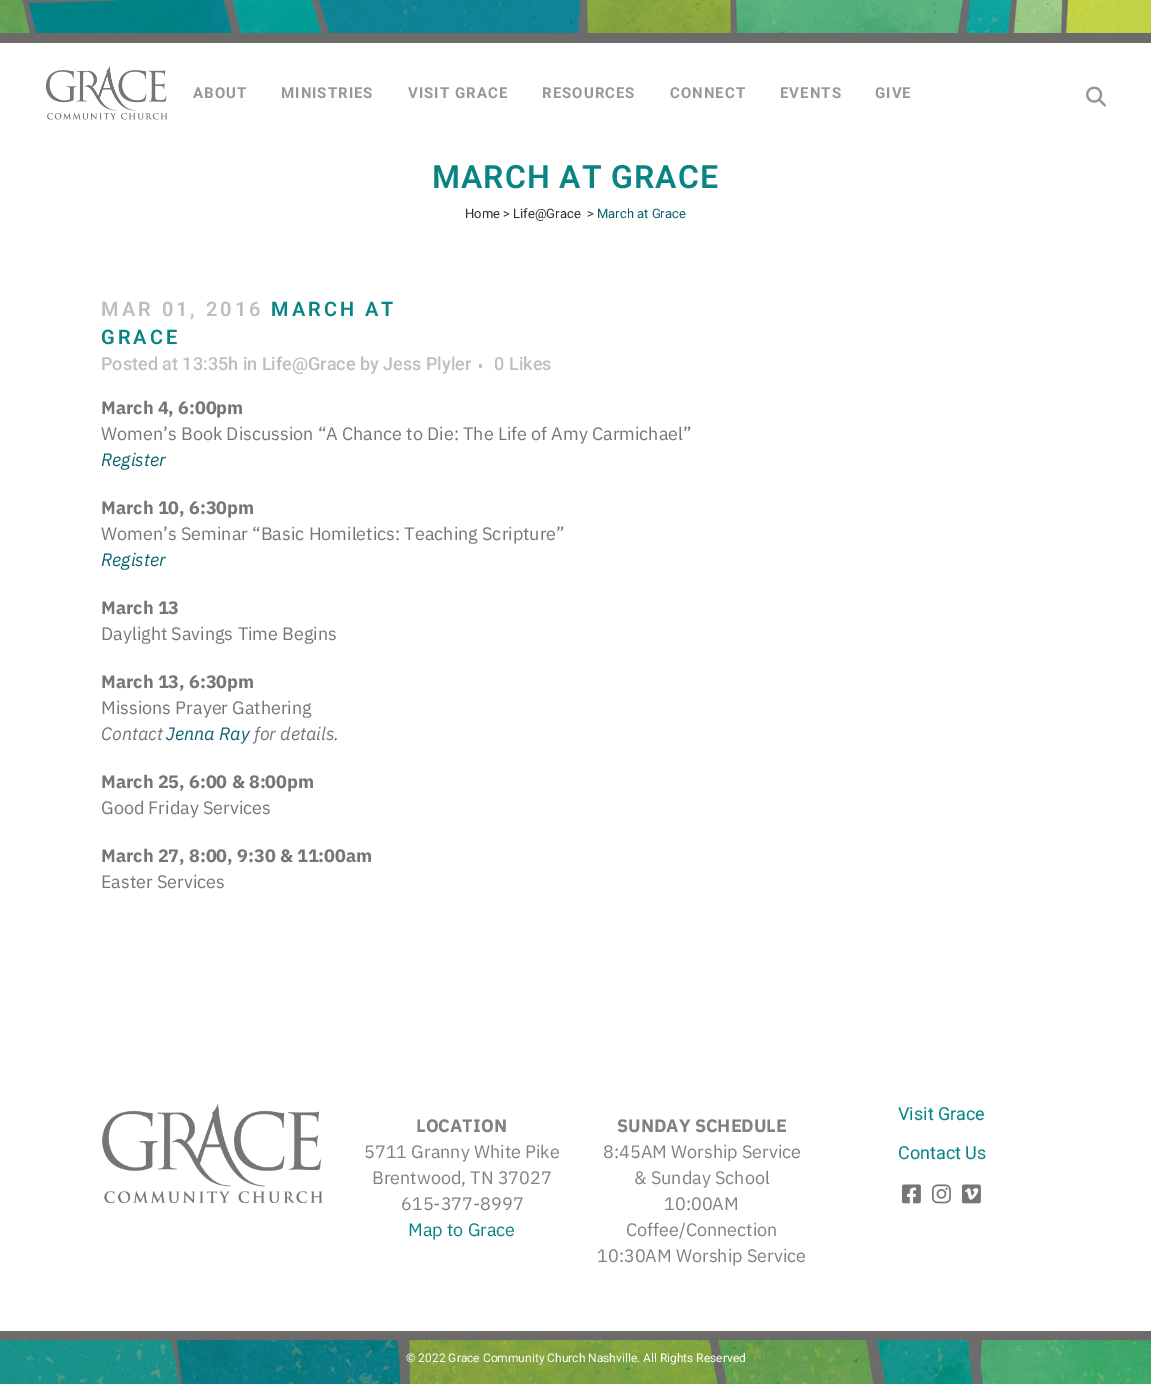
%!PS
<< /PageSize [1151 1394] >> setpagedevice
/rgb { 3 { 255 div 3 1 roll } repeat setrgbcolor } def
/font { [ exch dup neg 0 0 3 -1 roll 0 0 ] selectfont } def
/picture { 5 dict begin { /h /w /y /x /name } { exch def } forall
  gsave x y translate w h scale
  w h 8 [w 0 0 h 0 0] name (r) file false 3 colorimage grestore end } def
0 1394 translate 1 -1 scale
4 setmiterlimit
255 255 255 rgb
0 0 1151 1394 rectfill
(img/1.rgb) 0 0 1151 33 picture
109 107 105 rgb
0 33 1151 10 rectfill
(img/2.rgb) 46 66 122 54 picture
(img/3.rgb) 1086 86 20 21 picture
190 190 190 rgb
479 364 3 4 rectfill
(img/4.rgb) 102 1104 221 99 picture
(img/5.rgb) 902 1184 19 20 picture
(img/6.rgb) 932 1184 19 20 picture
(img/7.rgb) 962 1184 19 20 picture
(img/8.rgb) 0 1331 1151 53 picture
/Roboto-Bold 15 font
149 151 153 rgb
193 98 moveto 1 0 (ABOUT) ashow
281 98 moveto 1 0 (MINISTRIES) ashow
408 98 moveto 1 0 (VISIT GRACE) ashow
542 98 moveto 1 0 (RESOURCES) ashow
670 98 moveto 1 0 (CONNECT) ashow
780 98 moveto 1 0 (EVENTS) ashow
875 98 moveto 1 0 (GIVE) ashow
/Roboto-SemiBold 32 font
9 132 132 rgb
432 188 moveto 1 0 (MARCH AT GRACE) ashow
/Roboto-Regular 13 font
48 48 48 rgb
465 218 moveto (Home > Life@Grace) show
587 218 moveto (>) show
12 97 113 rgb
597 218 moveto (March at Grace) show
/Roboto-SemiBold 20 font
190 190 190 rgb
101 316 moveto 3 0 (MAR 01, 2016) ashow
9 132 132 rgb
271 316 moveto 3 0 (MARCH AT) ashow
101 344 moveto 3 0 (GRACE) ashow
/Roboto-Medium 18 font
190 190 190 rgb
[
  [(Posted at 13:35h in Life@Grace by Jess Plyler) 101 370]
  [(0) 494 370]
  [(Likes) 509 370]
] { aload pop moveto show } forall
/IBMPlexSans-Bold 18 font
116 118 122 rgb
101 414 moveto (March 4, 6:00pm) show
/IBMPlexSans-Regular 18 font
101 440 moveto (Women’s Book Discussion “A Chance to Die: The Life of Amy Carmichael”) show
/IBMPlexSans-Italic 18 font
12 97 113 rgb
101 466 moveto (Register) show
/IBMPlexSans-Bold 18 font
116 118 122 rgb
101 514 moveto (March 10, 6:30pm) show
/IBMPlexSans-Regular 18 font
101 540 moveto (Women’s Seminar “Basic Homiletics: Teaching Scripture”) show
/IBMPlexSans-Italic 18 font
12 97 113 rgb
101 566 moveto (Register) show
/IBMPlexSans-Bold 18 font
116 118 122 rgb
101 614 moveto (March 13) show
/IBMPlexSans-Regular 18 font
101 640 moveto (Daylight Savings Time Begins) show
/IBMPlexSans-Bold 18 font
101 688 moveto (March 13, 6:30pm) show
/IBMPlexSans-Regular 18 font
101 714 moveto (Missions Prayer Gathering) show
/IBMPlexSans-Italic 18 font
101 740 moveto (Contact) show
12 97 113 rgb
166 740 moveto (Jenna Ray) show
116 118 122 rgb
254 740 moveto (for details.) show
/IBMPlexSans-Bold 18 font
101 788 moveto (March 25, 6:00 & 8:00pm) show
/IBMPlexSans-Regular 18 font
101 814 moveto (Good Friday Services) show
/IBMPlexSans-Bold 18 font
101 862 moveto (March 27, 8:00, 9:30 & 11:00am) show
/IBMPlexSans-Regular 18 font
101 888 moveto (Easter Services) show
/IBMPlexSans-Bold 18 font
129 129 129 rgb
416 1132 moveto (LOCATION) show
/IBMPlexSans-Regular 18 font
[
  [(5711 Granny White Pike) 364 1158]
  [(Brentwood, TN 37027) 372 1184]
  [(615-377-8997) 401 1210]
] { aload pop moveto show } forall
9 132 132 rgb
408 1236 moveto (Map to Grace) show
/IBMPlexSans-Bold 18 font
129 129 129 rgb
617 1132 moveto (SUNDAY SCHEDULE) show
/IBMPlexSans-Regular 18 font
[
  [(8:45AM Worship Service) 603 1158]
  [(& Sunday School) 634 1184]
  [(10:00AM) 664 1210]
  [(Coffee/Connection) 626 1236]
  [(10:30AM Worship Service) 597 1262]
] { aload pop moveto show } forall
/Roboto-Regular 18 font
9 132 132 rgb
898 1120 moveto (Visit Grace) show
898 1159 moveto (Contact Us) show
/Roboto-Regular 12 font
255 255 255 rgb
406 1362 moveto (© 2022 Grace Community Church Nashville. All Rights Reserved) show
showpage
